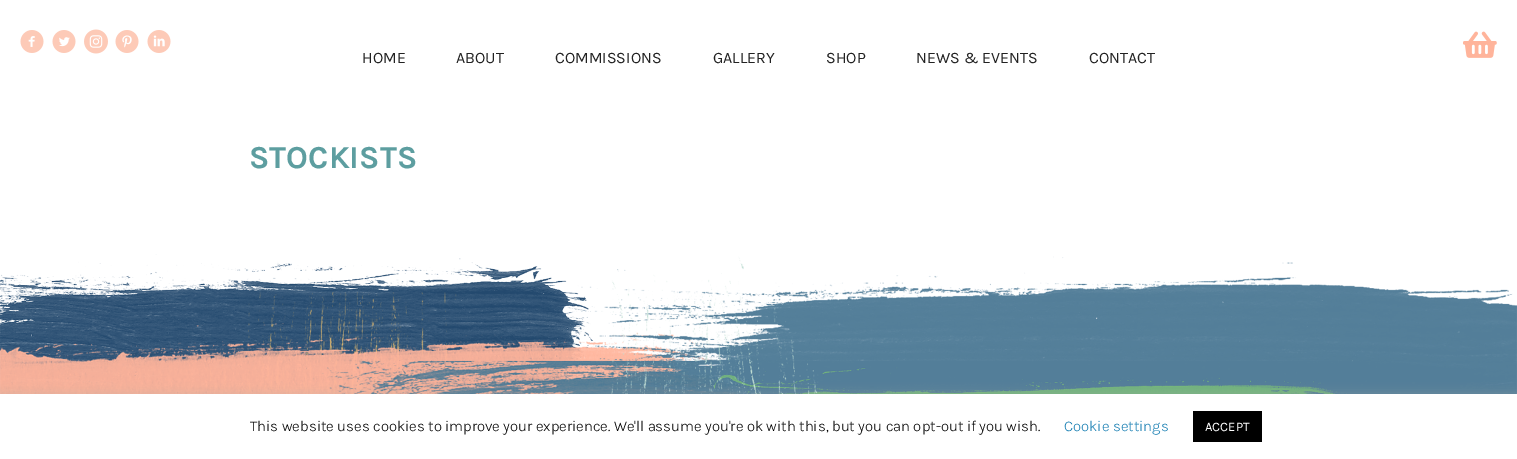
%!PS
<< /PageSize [1517 459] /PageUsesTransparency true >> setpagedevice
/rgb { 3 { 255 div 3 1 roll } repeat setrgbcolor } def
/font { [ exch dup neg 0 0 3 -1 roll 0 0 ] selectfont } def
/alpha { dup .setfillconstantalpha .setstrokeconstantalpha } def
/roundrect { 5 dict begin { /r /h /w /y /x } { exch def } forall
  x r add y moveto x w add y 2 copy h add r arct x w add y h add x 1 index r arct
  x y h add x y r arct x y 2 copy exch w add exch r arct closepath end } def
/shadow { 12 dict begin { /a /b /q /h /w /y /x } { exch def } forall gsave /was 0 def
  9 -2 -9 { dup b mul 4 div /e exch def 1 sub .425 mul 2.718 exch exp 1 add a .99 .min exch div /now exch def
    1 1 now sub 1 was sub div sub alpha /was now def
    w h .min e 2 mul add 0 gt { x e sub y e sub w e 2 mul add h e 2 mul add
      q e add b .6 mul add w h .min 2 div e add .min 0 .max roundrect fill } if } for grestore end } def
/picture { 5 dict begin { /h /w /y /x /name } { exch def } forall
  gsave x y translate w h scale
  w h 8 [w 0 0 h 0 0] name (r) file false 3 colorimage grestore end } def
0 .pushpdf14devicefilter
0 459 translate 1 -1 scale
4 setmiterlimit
255 255 255 rgb
0 0 1517 459 rectfill
(img/1.rgb) 20 30 24 23 picture
(img/2.rgb) 52 30 24 23 picture
(img/3.rgb) 84 29 24 25 picture
(img/4.rgb) 115 30 24 23 picture
(img/5.rgb) 147 30 24 23 picture
(img/6.rgb) 1463 31 34 27 picture
(img/7.rgb) 0 254 1517 140 picture
172 171 171 rgb
0 393 1517 65 0 5 0.3 shadow
255 255 255 rgb
0 394 1517 65 rectfill
0 0 0 rgb
1193 411 69 31 rectfill
/Karla-Regular 16 font
34 34 34 rgb
[
  [(HOME) 362 63]
  [(ABOUT) 456 63]
  [(COMMISSIONS) 555 63]
  [(GALLERY) 713 63]
  [(SHOP) 826 63]
  [(NEWS & EVENTS) 916 63]
  [(CONTACT) 1089 63]
] { aload pop moveto show } forall
/Karla-Bold 32 font
93 158 160 rgb
249 168 moveto (STOCKISTS) show
/Karla-Light 15 font
0 0 0 rgb
250 431 moveto (This website uses cookies to improve your experience. We'll assume you're ok with this, but you can opt-out if you wish.) show
23 126 178 rgb
1064 431 moveto (Cookie settings) show
/Karla-Regular 13 font
255 255 255 rgb
1205 431 moveto (ACCEPT) show
.poppdf14devicefilter showpage
